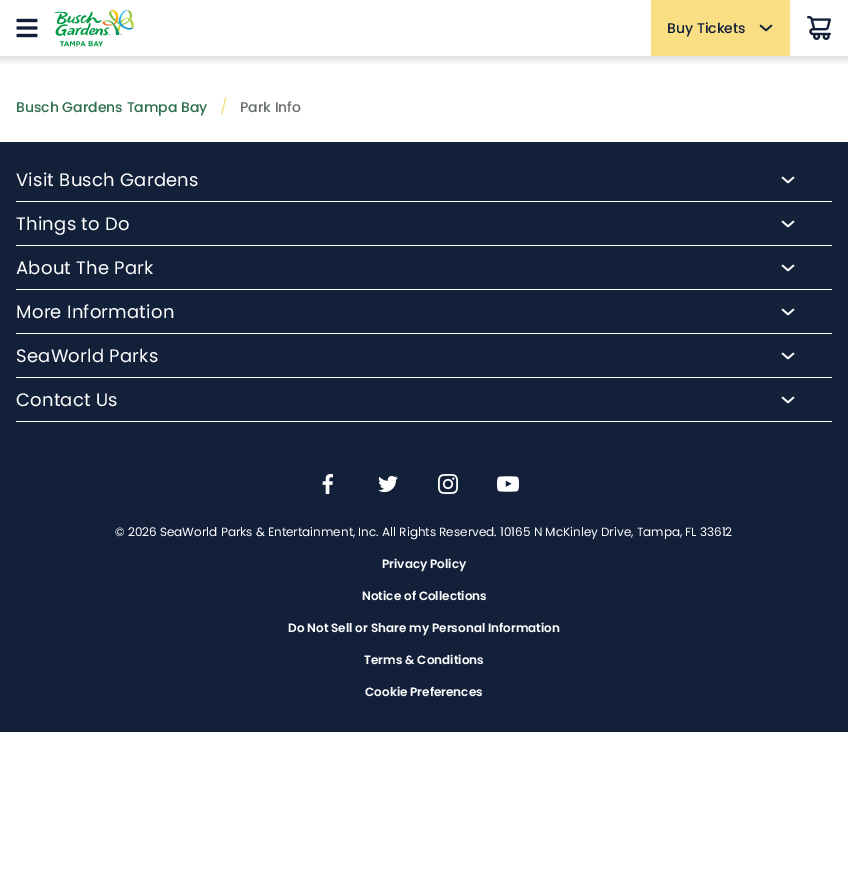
%!PS
<< /PageSize [848 869] /PageUsesTransparency true >> setpagedevice
/rgb { 3 { 255 div 3 1 roll } repeat setrgbcolor } def
/font { [ exch dup neg 0 0 3 -1 roll 0 0 ] selectfont } def
/alpha { dup .setfillconstantalpha .setstrokeconstantalpha } def
/roundrect { 5 dict begin { /r /h /w /y /x } { exch def } forall
  x r add y moveto x w add y 2 copy h add r arct x w add y h add x 1 index r arct
  x y h add x y r arct x y 2 copy exch w add exch r arct closepath end } def
/shadow { 12 dict begin { /a /b /q /h /w /y /x } { exch def } forall gsave /was 0 def
  9 -2 -9 { dup b mul 4 div /e exch def 1 sub .425 mul 2.718 exch exp 1 add a .99 .min exch div /now exch def
    1 1 now sub 1 was sub div sub alpha /was now def
    w h .min e 2 mul add 0 gt { x e sub y e sub w e 2 mul add h e 2 mul add
      q e add b .6 mul add w h .min 2 div e add .min 0 .max roundrect fill } if } for grestore end } def
/picture { 5 dict begin { /h /w /y /x /name } { exch def } forall
  gsave x y translate w h scale
  w h 8 [w 0 0 h 0 0] name (r) file false 3 colorimage grestore end } def
0 .pushpdf14devicefilter
0 869 translate 1 -1 scale
4 setmiterlimit
255 255 255 rgb
0 0 848 869 rectfill
gsave
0 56 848 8 rectclip
5 13 17 rgb
0 2 848 56 0 5 0.2 shadow
grestore
(img/1.rgb) 16 18 22 20 picture
(img/2.rgb) 54 10 80 37 picture
249 222 131 rgb
651 0 139 56 rectfill
(img/3.rgb) 759 24 14 8 picture
(img/4.rgb) 807 16 24 24 picture
19 32 58 rgb
0 142 848 590 rectfill
255 255 255 rgb
16 201 816 1 rectfill
(img/5.rgb) 781 176 14 8 picture
16 245 816 1 rectfill
(img/5.rgb) 781 220 14 8 picture
16 289 816 1 rectfill
(img/5.rgb) 781 264 14 8 picture
16 333 816 1 rectfill
(img/5.rgb) 781 308 14 8 picture
16 377 816 1 rectfill
(img/5.rgb) 781 352 14 8 picture
16 421 816 1 rectfill
(img/5.rgb) 781 396 14 8 picture
(img/6.rgb) 322 474 11 20 picture
(img/7.rgb) 378 475 20 18 picture
(img/8.rgb) 438 474 20 20 picture
(img/9.rgb) 497 476 22 16 picture
/Poppins-Medium 14 font
19 32 58 rgb
667 33 moveto (Buy Tickets) show
46 109 78 rgb
16 112 moveto (Busch Gardens Tampa Bay) show
/Poppins-Regular 16 font
249 222 131 rgb
220 112 moveto (/) show
/Poppins-Medium 14 font
105 110 112 rgb
240 112 moveto (Park Info) show
/Poppins-Regular 18 font
255 255 255 rgb
16 186 moveto 0.25 0 (Visit Busch Gardens) ashow
16 230 moveto 0.25 0 (Things to Do) ashow
16 274 moveto 0.25 0 (About The Park) ashow
16 318 moveto 0.25 0 (More Information) ashow
16 362 moveto 0.25 0 (SeaWorld Parks) ashow
16 406 moveto 0.25 0 (Contact Us) ashow
/Poppins-Regular 12 font
115 536 moveto (© 2026 SeaWorld Parks & Entertainment, Inc. All Rights Reserved. 10165 N McKinley Drive, Tampa, FL 33612) show
/Poppins-SemiBold 12 font
[
  [(Privacy Policy) 382 568]
  [(Notice of Collections) 362 600]
  [(Do Not Sell or Share my Personal Information) 288 632]
  [(Terms & Conditions) 364 664]
  [(Cookie Preferences) 365 696]
] { aload pop moveto show } forall
.poppdf14devicefilter showpage
